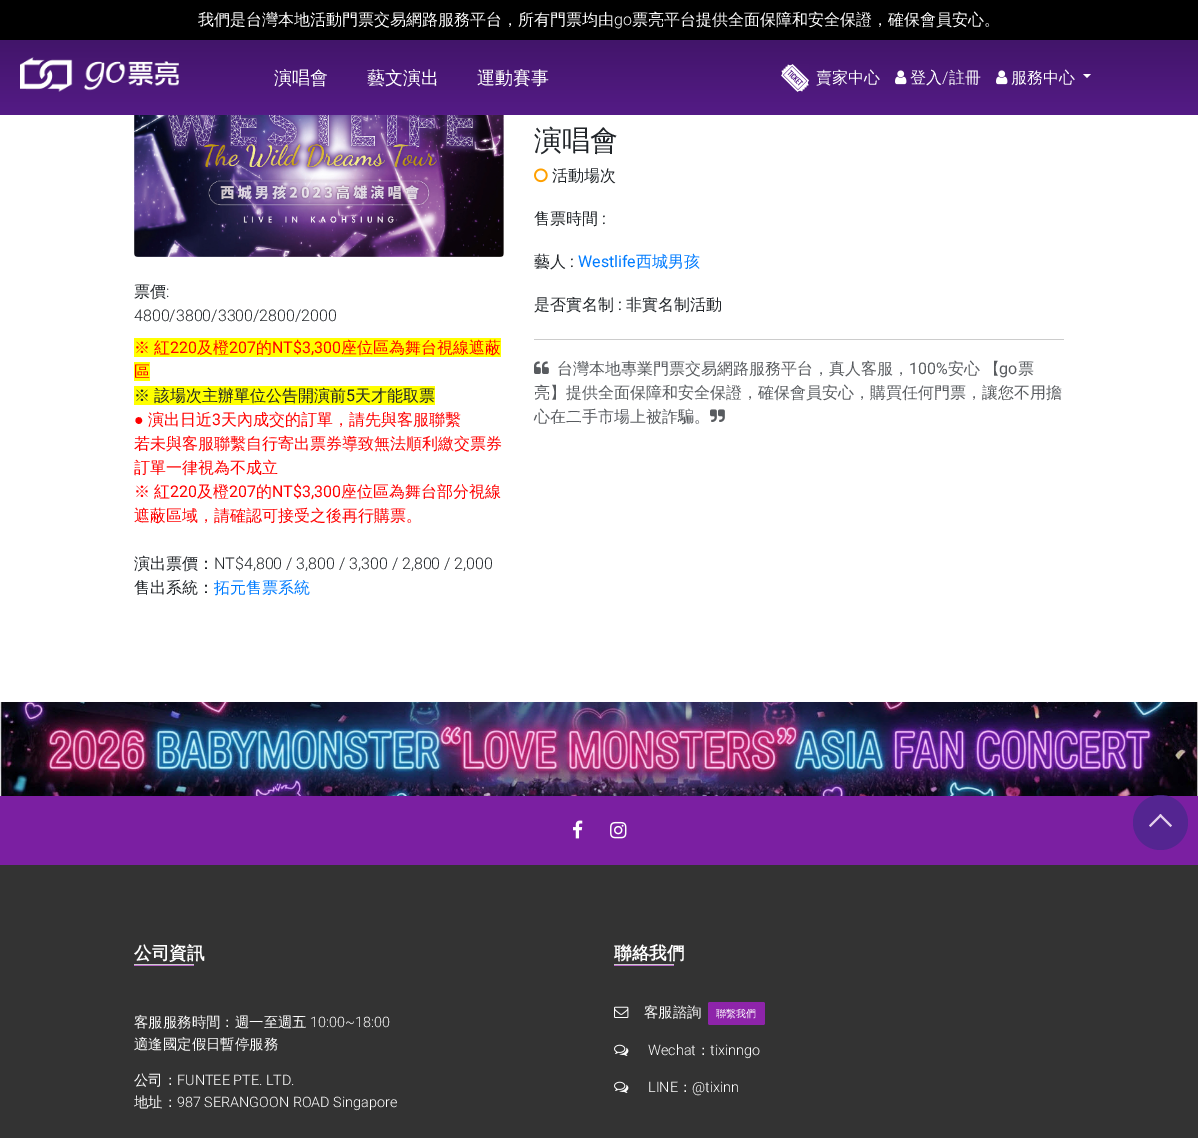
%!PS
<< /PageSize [1198 1138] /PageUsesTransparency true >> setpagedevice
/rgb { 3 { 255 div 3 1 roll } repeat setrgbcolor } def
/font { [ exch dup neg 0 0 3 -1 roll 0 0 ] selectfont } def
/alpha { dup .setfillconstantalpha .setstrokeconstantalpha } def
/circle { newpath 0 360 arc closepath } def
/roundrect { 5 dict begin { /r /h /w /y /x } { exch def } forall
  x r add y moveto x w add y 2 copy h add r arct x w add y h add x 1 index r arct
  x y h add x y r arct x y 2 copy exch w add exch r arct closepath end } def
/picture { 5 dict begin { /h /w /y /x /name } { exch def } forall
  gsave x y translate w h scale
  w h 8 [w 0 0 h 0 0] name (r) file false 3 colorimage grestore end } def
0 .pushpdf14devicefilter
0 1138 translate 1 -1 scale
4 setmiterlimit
123 31 162 rgb
0 0 1198 1138 rectfill
gsave 0 40 moveto 1198 40 lineto 1198 115 lineto 0 115 lineto closepath clip newpath
<< /ShadingType 2 /ColorSpace /DeviceRGB /Coords [599 0 599 115] /Extend [true true] /Function << /FunctionType 2 /Domain [0 1] /C0 [0.224 0.071 0.357] /C1 [0.329 0.106 0.525] /N 1 >> >> shfill grestore
0 0 0 rgb
0 0 1198 40 rectfill
(img/1.rgb) 20 57 159 35 picture
(img/2.rgb) 781 64 28 28 picture
(img/3.rgb) 895 70 12 15 picture
(img/3.rgb) 996 70 12 15 picture
255 255 255 rgb
1083 74 moveto 1091 74 lineto 1087 78 lineto closepath fill
0 115 1198 587 rectfill
(img/4.rgb) 134 115 370 142 picture
[
  [134 338 367 19 255 255 0]
  [134 362 16 19 255 255 0]
  [134 386 301 19 255 255 0]
] { aload pop rgb rectfill } forall
(img/5.rgb) 534 168 14 15 picture
204 204 204 rgb
534 339 530 1 rectfill
(img/6.rgb) 534 361 15 13 picture
(img/7.rgb) 710 409 15 13 picture
(img/8.rgb) 0 702 1198 94 picture
(img/9.rgb) 573 820 10 19 picture
(img/10.rgb) 610 821 17 18 picture
[
  [0 865 1198 273 51 51 51]
  [134 965 60 1 186 104 200]
  [134 964 60 1 204 204 204]
  [614 965 60 1 186 104 200]
  [614 964 60 1 204 204 204]
] { aload pop rgb rectfill } forall
(img/11.rgb) 614 1006 15 12 picture
142 36 170 rgb
708 1002 57 23 2 roundrect fill
(img/12.rgb) 614 1044 15 12 picture
(img/12.rgb) 614 1081 15 12 picture
0.8 alpha
74 38 141 rgb
1160.5 822.5 27.5 circle fill
1 alpha
229 210 236 rgb
1150.5 827 moveto 1149 825.5 lineto 1160.5 814 lineto 1162 815.5 lineto closepath fill
1170.5 827 moveto 1159 815.5 lineto 1160.5 814 lineto 1172 825.5 lineto closepath fill
/WenQuanYiZenHei-Medium 16 font
255 255 255 rgb
198 25 moveto (我們是台灣本地活動門票交易網路服務平台，所有門票均由) show
/Roboto-Light 16 font
614 25 moveto (go) show
/WenQuanYiZenHei-Medium 16 font
632 25 moveto (票亮平台提供全面保障和安全保證，確保會員安心。) show
/WenQuanYiZenHei-Medium 18 font
[
  [(演唱會) 274 84]
  [(藝文演出) 367 84]
  [(運動賽事) 477 84]
] { aload pop moveto show } forall
/WenQuanYiZenHei-Medium 16 font
816 83 moveto (賣家中心) show
910 83 moveto (登入) show
/Roboto-Light 16 font
942 83 moveto (/) show
/WenQuanYiZenHei-Medium 16 font
949 83 moveto (註冊) show
1011 83 moveto (服務中心) show
33 37 41 rgb
134 297 moveto (票價) show
/Roboto-Light 16 font
166 297 moveto (:) show
134 321 moveto (4800/3800/3300/2800/2000) show
/WenQuanYiZenHei-Medium 16 font
255 0 0 rgb
134 353 moveto -1 0 32 (※ 紅) widthshow
/Roboto-Regular 16 font
170 353 moveto (220) show
/WenQuanYiZenHei-Medium 16 font
197 353 moveto (及橙) show
/Roboto-Regular 16 font
229 353 moveto (207) show
/WenQuanYiZenHei-Medium 16 font
256 353 moveto (的) show
/Roboto-Regular 16 font
272 353 moveto (NT$3,300) show
/WenQuanYiZenHei-Medium 16 font
341 353 moveto (座位區為舞台視線遮蔽) show
134 377 moveto (區) show
33 37 41 rgb
134 401 moveto (※) show
154 401 moveto (該場次主辦單位公告開演前) show
/Roboto-Regular 16 font
346 401 moveto (5) show
/WenQuanYiZenHei-Medium 16 font
355 401 moveto (天才能取票) show
/LiberationSans-Regular 16 font
255 0 0 rgb
134 425 moveto (●) show
/WenQuanYiZenHei-Medium 16 font
148 425 moveto (演出日近) show
/Roboto-Regular 16 font
212 425 moveto (3) show
/WenQuanYiZenHei-Medium 16 font
[
  [(天內成交的訂單，請先與客服聯繫) 221 425]
  [(若未與客服聯繫自行寄出票券導致無法順利繳交票券) 134 449]
  [(訂單一律視為不成立) 134 473]
  [(※) 134 497]
  [(紅) 154 497]
] { aload pop moveto show } forall
/Roboto-Regular 16 font
170 497 moveto (220) show
/WenQuanYiZenHei-Medium 16 font
197 497 moveto (及橙) show
/Roboto-Regular 16 font
229 497 moveto (207) show
/WenQuanYiZenHei-Medium 16 font
256 497 moveto (的) show
/Roboto-Regular 16 font
272 497 moveto (NT$3,300) show
/WenQuanYiZenHei-Medium 16 font
341 497 moveto (座位區為舞台部分視線) show
134 521 moveto (遮蔽區域，請確認可接受之後再行購票。) show
33 37 41 rgb
134 569 moveto (演出票價：) show
/Roboto-Light 16 font
214 569 moveto (NT$4,800 / 3,800 / 3,300 / 2,800 / 2,000) show
/WenQuanYiZenHei-Medium 16 font
134 593 moveto (售出系統：) show
0 123 255 rgb
214 593 moveto (拓元售票系統) show
/WenQuanYiZenHei-Medium 28 font
33 37 41 rgb
534 150 moveto (演唱會) show
/WenQuanYiZenHei-Medium 16 font
552 181 moveto (活動場次) show
534 224 moveto (售票時間) show
/Roboto-Regular 16 font
602 224 moveto (:) show
/WenQuanYiZenHei-Medium 16 font
534 267 moveto (藝人) show
/Roboto-Regular 16 font
570 267 moveto (:) show
0 123 255 rgb
578 267 moveto (Westlife) show
/WenQuanYiZenHei-Medium 16 font
636 267 moveto (西城男孩) show
33 37 41 rgb
534 310 moveto (是否實名制) show
/Roboto-Regular 16 font
618 310 moveto (:) show
/WenQuanYiZenHei-Medium 16 font
626 310 moveto (非實名制活動) show
88 91 95 rgb
557 374 moveto (台灣本地專業門票交易網路服務平台，真人客服，) show
/Roboto-Regular 16 font
909 374 moveto (100%) show
/WenQuanYiZenHei-Medium 16 font
948 374 moveto -1 0 32 (安心 【) widthshow
/Roboto-Regular 16 font
999 374 moveto (go) show
/WenQuanYiZenHei-Medium 16 font
[
  [(票) 1018 374]
  [(亮】提供全面保障和安全保證，確保會員安心，購買任何門票，讓您不用擔) 534 398]
  [(心在二手市場上被詐騙。) 534 422]
] { aload pop moveto show } forall
/WenQuanYiZenHei-Bold 17.5 font
255 255 255 rgb
134 959 moveto (公司資訊) show
/WenQuanYiZenHei-Medium 14.4 font
134 1027 moveto (客服服務時間：週一至週五) show
/Roboto-Light 14.4 font
310 1027 moveto (10:00~18:00) show
/WenQuanYiZenHei-Medium 14.4 font
134 1049 moveto (適逢國定假日暫停服務) show
134 1085 moveto (公司：) show
/Roboto-Light 14.4 font
177 1085 moveto (FUNTEE PTE. LTD.) show
/WenQuanYiZenHei-Medium 14.4 font
134 1107 moveto (地址：) show
/Roboto-Light 14.4 font
177 1107 moveto (987 SERANGOON ROAD Singapore) show
/WenQuanYiZenHei-Bold 17.5 font
614 959 moveto (聯絡我們) show
/WenQuanYiZenHei-Medium 14.4 font
644 1017 moveto (客服諮詢) show
/WenQuanYiZenHei-Medium 10 font
716 1017 moveto (聯繫我們) show
/Roboto-Light 14.4 font
648 1055 moveto (Wechat) show
/WenQuanYiZenHei-Medium 14.4 font
696 1055 moveto (：) show
/Roboto-Light 14.4 font
710 1055 moveto (tixinngo) show
648 1092 moveto (LINE) show
/WenQuanYiZenHei-Medium 14.4 font
678 1092 moveto (：) show
/Roboto-Light 14.4 font
692 1092 moveto (@tixinn) show
.poppdf14devicefilter showpage
